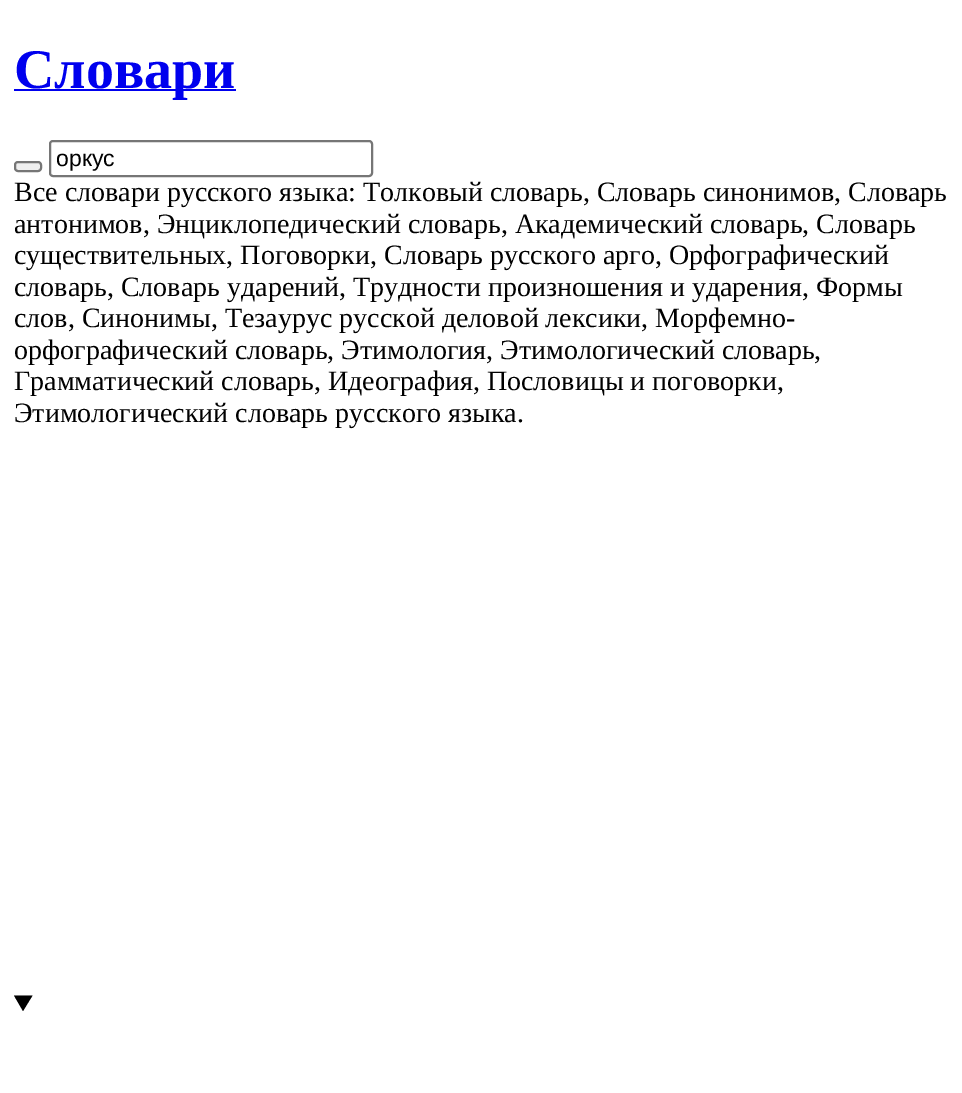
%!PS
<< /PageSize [962 1093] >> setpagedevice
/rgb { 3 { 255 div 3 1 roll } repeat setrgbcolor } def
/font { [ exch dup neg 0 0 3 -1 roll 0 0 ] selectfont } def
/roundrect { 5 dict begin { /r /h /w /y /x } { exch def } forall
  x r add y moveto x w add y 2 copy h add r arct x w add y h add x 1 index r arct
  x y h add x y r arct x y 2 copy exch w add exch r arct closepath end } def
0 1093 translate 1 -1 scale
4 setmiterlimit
255 255 255 rgb
0 0 962 1093 rectfill
0 0 238 rgb
14 89 222 2 rectfill
239 239 239 rgb
15 162 26 9 3 roundrect gsave fill grestore
118 118 118 rgb
2 setlinewidth
stroke
50 141 322 35 3 roundrect stroke
0 0 0 rgb
14 995.5 moveto 32.5 995.5 lineto 23 1011 lineto closepath fill
/LiberationSerif-Bold 56 font
0 0 238 rgb
14 88 moveto (Словари) show
/LiberationSans-Regular 23 font
0 0 0 rgb
56 166 moveto (оркус) show
/LiberationSerif-Regular 28 font
[
  [(Все словари русского языка: Толковый словарь, Словарь синонимов, Словарь) 14 201]
  [(антонимов, Энциклопедический словарь, Академический словарь, Словарь) 14 233]
  [(существительных, Поговорки, Словарь русского арго, Орфографический) 14 264]
  [(словарь, Словарь ударений, Трудности произношения и ударения, Формы) 14 296]
  [(слов, Синонимы, Тезаурус русской деловой лексики, Морфемно-) 14 327]
  [(орфографический словарь, Этимология, Этимологический словарь,) 14 359]
  [(Грамматический словарь, Идеография, Пословицы и поговорки,) 14 390]
  [(Этимологический словарь русского языка.) 14 422]
] { aload pop moveto show } forall
showpage
